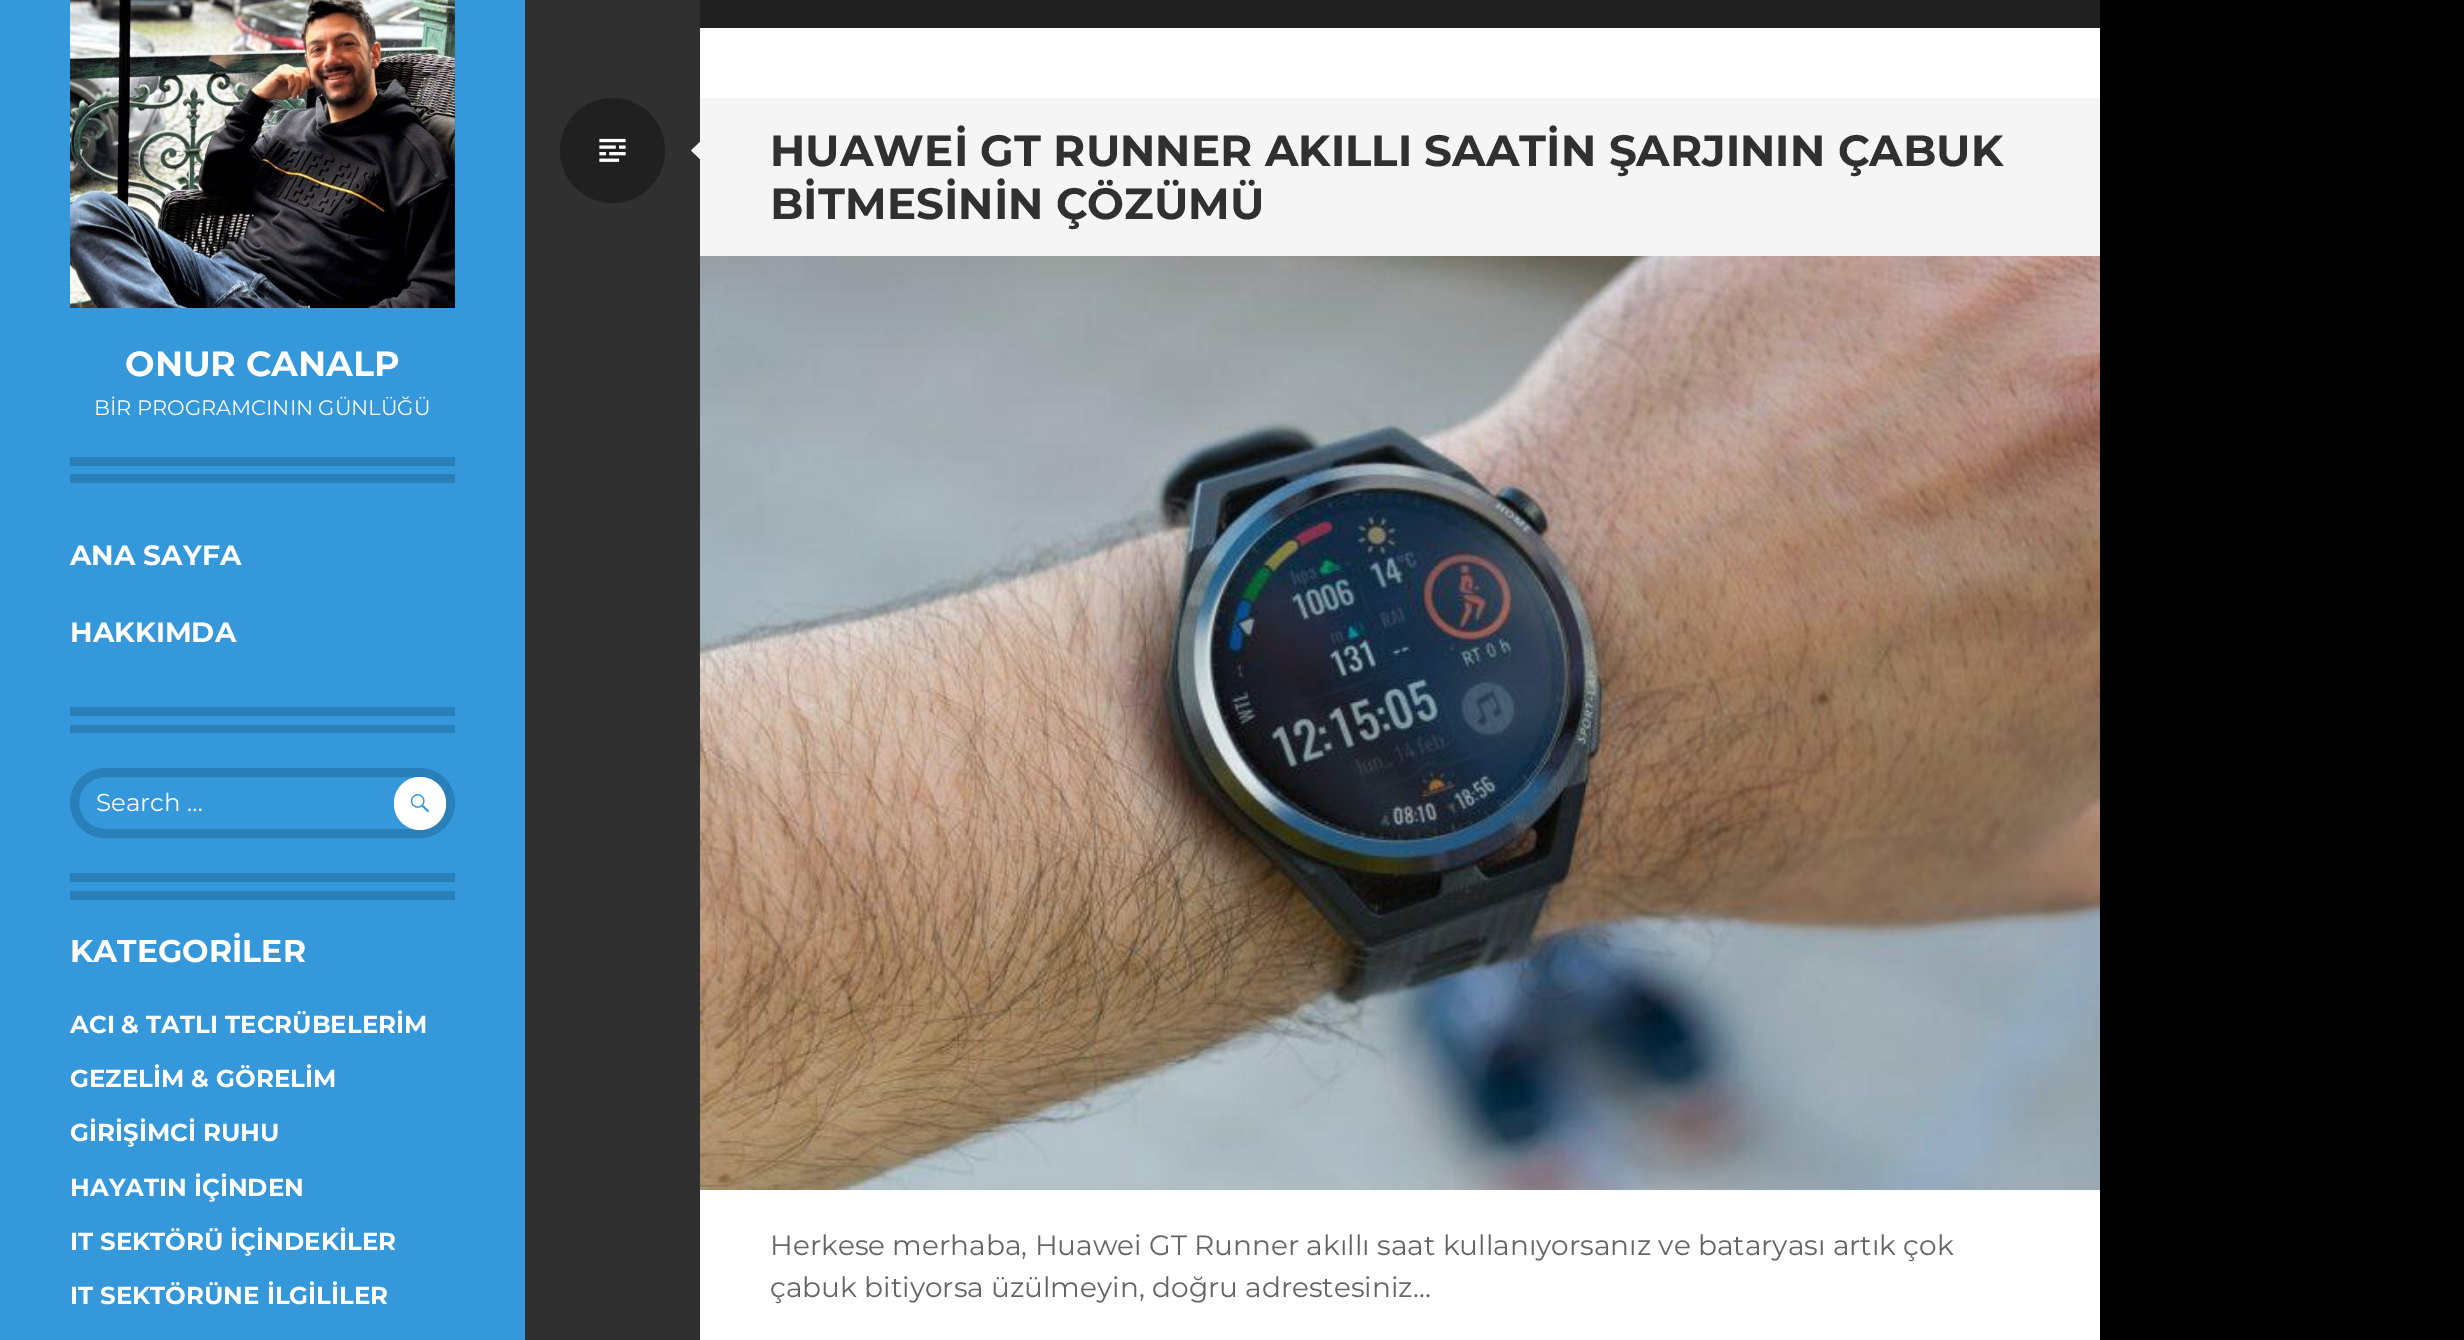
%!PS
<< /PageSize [2464 1340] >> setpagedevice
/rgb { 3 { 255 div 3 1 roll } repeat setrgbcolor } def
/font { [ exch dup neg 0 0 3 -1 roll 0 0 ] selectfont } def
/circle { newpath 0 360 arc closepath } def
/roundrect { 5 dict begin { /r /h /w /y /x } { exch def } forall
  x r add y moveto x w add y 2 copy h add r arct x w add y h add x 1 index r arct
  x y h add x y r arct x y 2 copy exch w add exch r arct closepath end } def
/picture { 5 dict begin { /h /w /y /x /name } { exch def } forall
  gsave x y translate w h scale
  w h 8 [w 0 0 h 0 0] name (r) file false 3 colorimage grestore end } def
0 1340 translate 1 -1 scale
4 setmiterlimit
0 0 0 rgb
0 0 2464 1340 rectfill
[
  [0 0 525 1340 52 152 219]
  [525 0 175 1340 48 48 48]
  [700 28 1400 1312 255 255 255]
] { aload pop rgb rectfill } forall
(img/1.rgb) 70 0 385 308 picture
[
  [70 457 385 9 41 128 185]
  [70 474 385 9 41 128 185]
  [70 707 385 9 41 128 185]
  [70 725 385 8 41 128 185]
  [70 873 385 9 41 128 185]
  [70 891 385 9 41 128 185]
] { aload pop rgb rectfill } forall
9 setlinewidth
74.5 772.5 376 61 30.5 roundrect stroke
255 255 255 rgb
394 777 52 53 26 roundrect fill
(img/2.rgb) 410 794 20 19 picture
32 32 32 rgb
700 0 1400 28 rectfill
612.5 150.5 52.5 circle fill
(img/3.rgb) 599 138 27 24 picture
245 245 245 rgb
700 98 1400 158 rectfill
700 142 moveto 700 159 lineto 691 150.5 lineto closepath fill
(img/4.rgb) 700 256 1400 934 picture
/Montserrat-Bold 35 font
255 255 255 rgb
125 376 moveto (ONUR CANALP) show
/Montserrat-Regular 21 font
94 415 moveto (BİR PROGRAMCININ GÜNLÜĞÜ) show
/Montserrat-Bold 28 font
70 565 moveto (ANA SAYFA) show
70 642 moveto (HAKKIMDA) show
/Montserrat-Regular 24.5 font
96 811 moveto (Search …) show
/Montserrat-Bold 31.5 font
70 962 moveto (KATEGORİLER) show
/Montserrat-Bold 24.5 font
[
  [(ACI & TATLI TECRÜBELERİM) 70 1033]
  [(GEZELİM & GÖRELİM) 70 1087]
  [(GİRİŞİMCİ RUHU) 70 1141]
  [(HAYATIN İÇİNDEN) 70 1196]
  [(IT SEKTÖRÜ İÇİNDEKİLER) 70 1250]
  [(IT SEKTÖRÜNE İLGİLİLER) 70 1304]
] { aload pop moveto show } forall
/Montserrat-Bold 43.75 font
48 48 48 rgb
770 166 moveto (HUAWEİ GT RUNNER AKILLI SAATİN ŞARJININ ÇABUK) show
770 219 moveto (BİTMESİNİN ÇÖZÜMÜ) show
/Montserrat-Regular 28 font
101 101 101 rgb
770 1255 moveto (Herkese merhaba, Huawei GT Runner akıllı saat kullanıyorsanız ve bataryası artık çok) show
770 1297 moveto (çabuk bitiyorsa üzülmeyin, doğru adrestesiniz...) show
showpage
